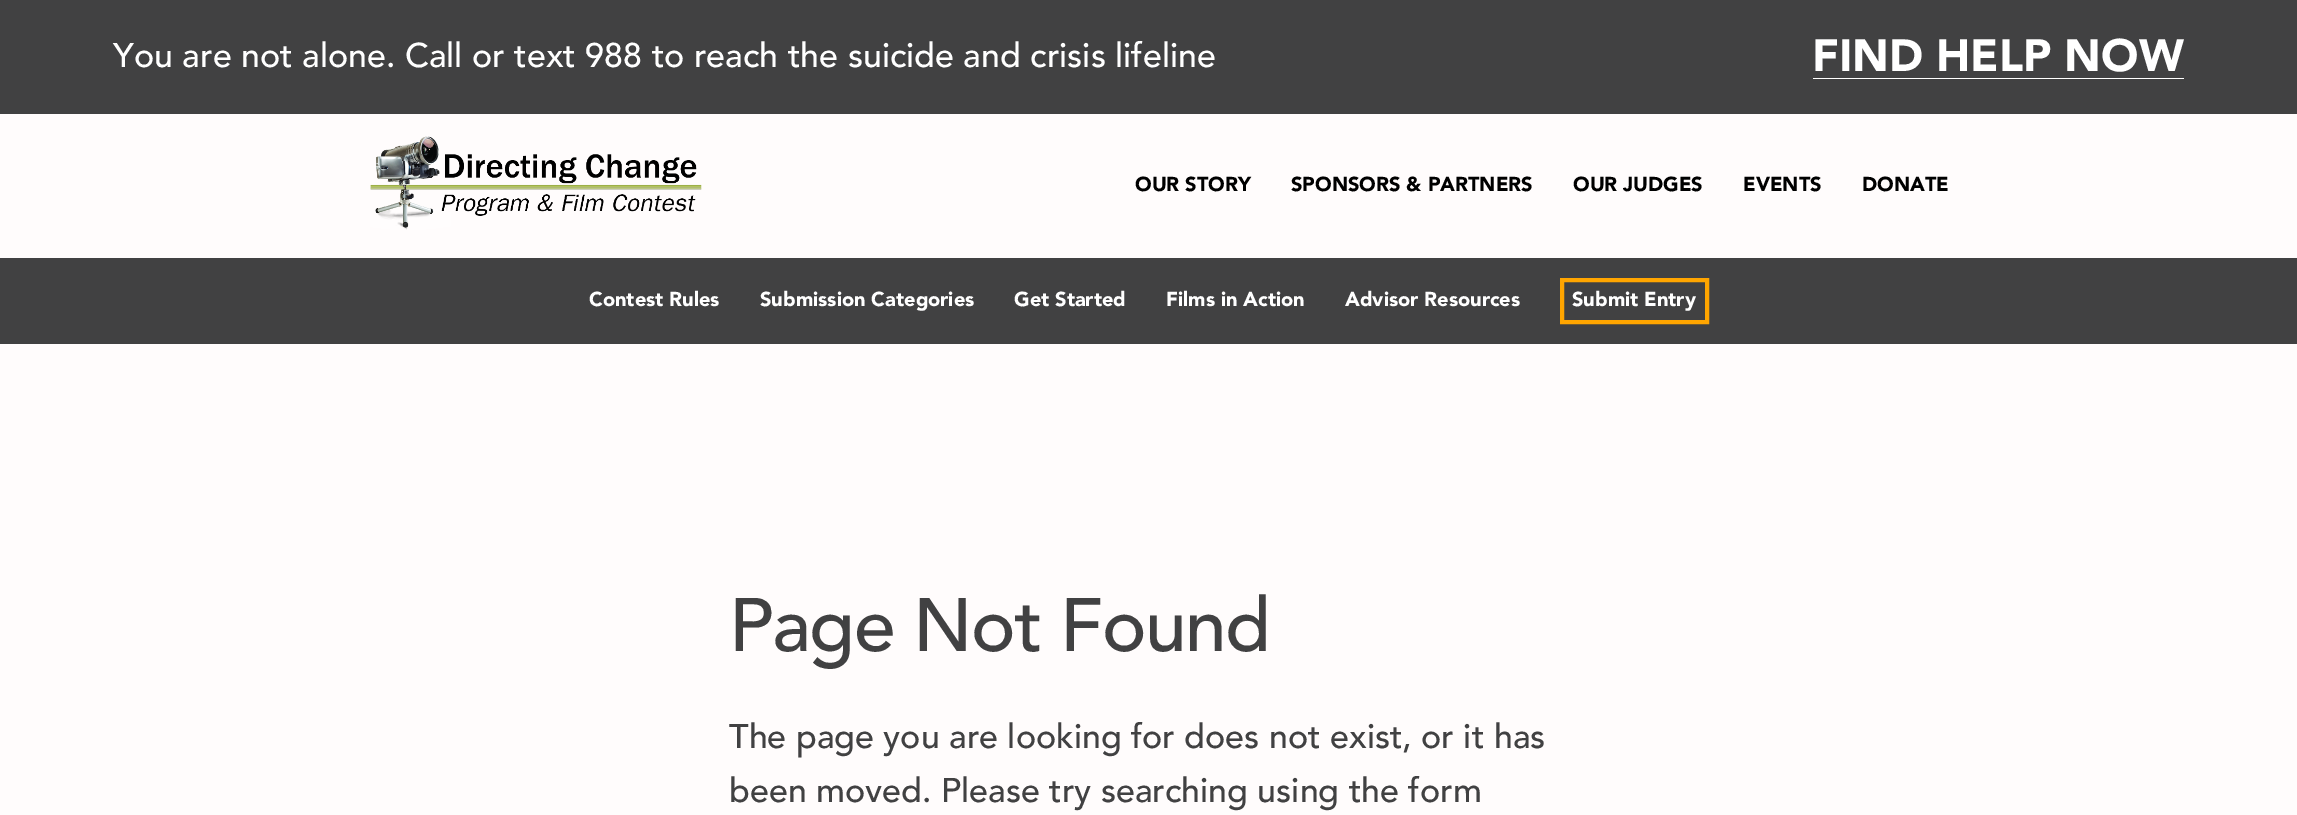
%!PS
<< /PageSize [2297 815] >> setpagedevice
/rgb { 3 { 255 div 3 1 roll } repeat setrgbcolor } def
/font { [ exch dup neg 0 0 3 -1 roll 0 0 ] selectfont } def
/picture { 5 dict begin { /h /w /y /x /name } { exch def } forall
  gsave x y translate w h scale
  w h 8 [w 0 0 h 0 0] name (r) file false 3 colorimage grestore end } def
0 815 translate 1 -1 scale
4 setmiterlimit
255 252 252 rgb
0 0 2297 815 rectfill
65 65 66 rgb
0 0 2297 114 rectfill
255 255 255 rgb
1813 78 371 1 rectfill
(img/1.rgb) 370 136 332 94 picture
65 65 66 rgb
0 258 2297 86 rectfill
255 165 0 rgb
4 setlinewidth
1562 280 145 42 rectstroke
/Avenir-Medium 34 font
255 255 255 rgb
113 67 moveto (You are not alone. Call or text 988 to reach the suicide and crisis lifeline) show
/Avenir-Black 45 font
1812 71 moveto (FIND HELP NOW) show
/Avenir-Black 20 font
0 0 0 rgb
[
  [(OUR STORY) 1135 191]
  [(SPONSORS & PARTNERS) 1291 191]
  [(OUR JUDGES) 1573 191]
  [(EVENTS) 1743 191]
  [(DONATE) 1862 191]
] { aload pop moveto show } forall
255 255 255 rgb
[
  [(Contest Rules) 589 306]
  [(Submission Categories) 760 306]
  [(Get Started) 1014 306]
  [(Films in Action) 1166 306]
  [(Advisor Resources) 1345 306]
  [(Submit Entry) 1572 306]
] { aload pop moveto show } forall
/Avenir-Medium 75 font
65 65 66 rgb
729 651 moveto -1.5 0 (Page Not Found) ashow
/Avenir-Medium 34 font
729 748 moveto (The page you are looking for does not exist, or it has) show
729 802 moveto (been moved. Please try searching using the form) show
showpage
